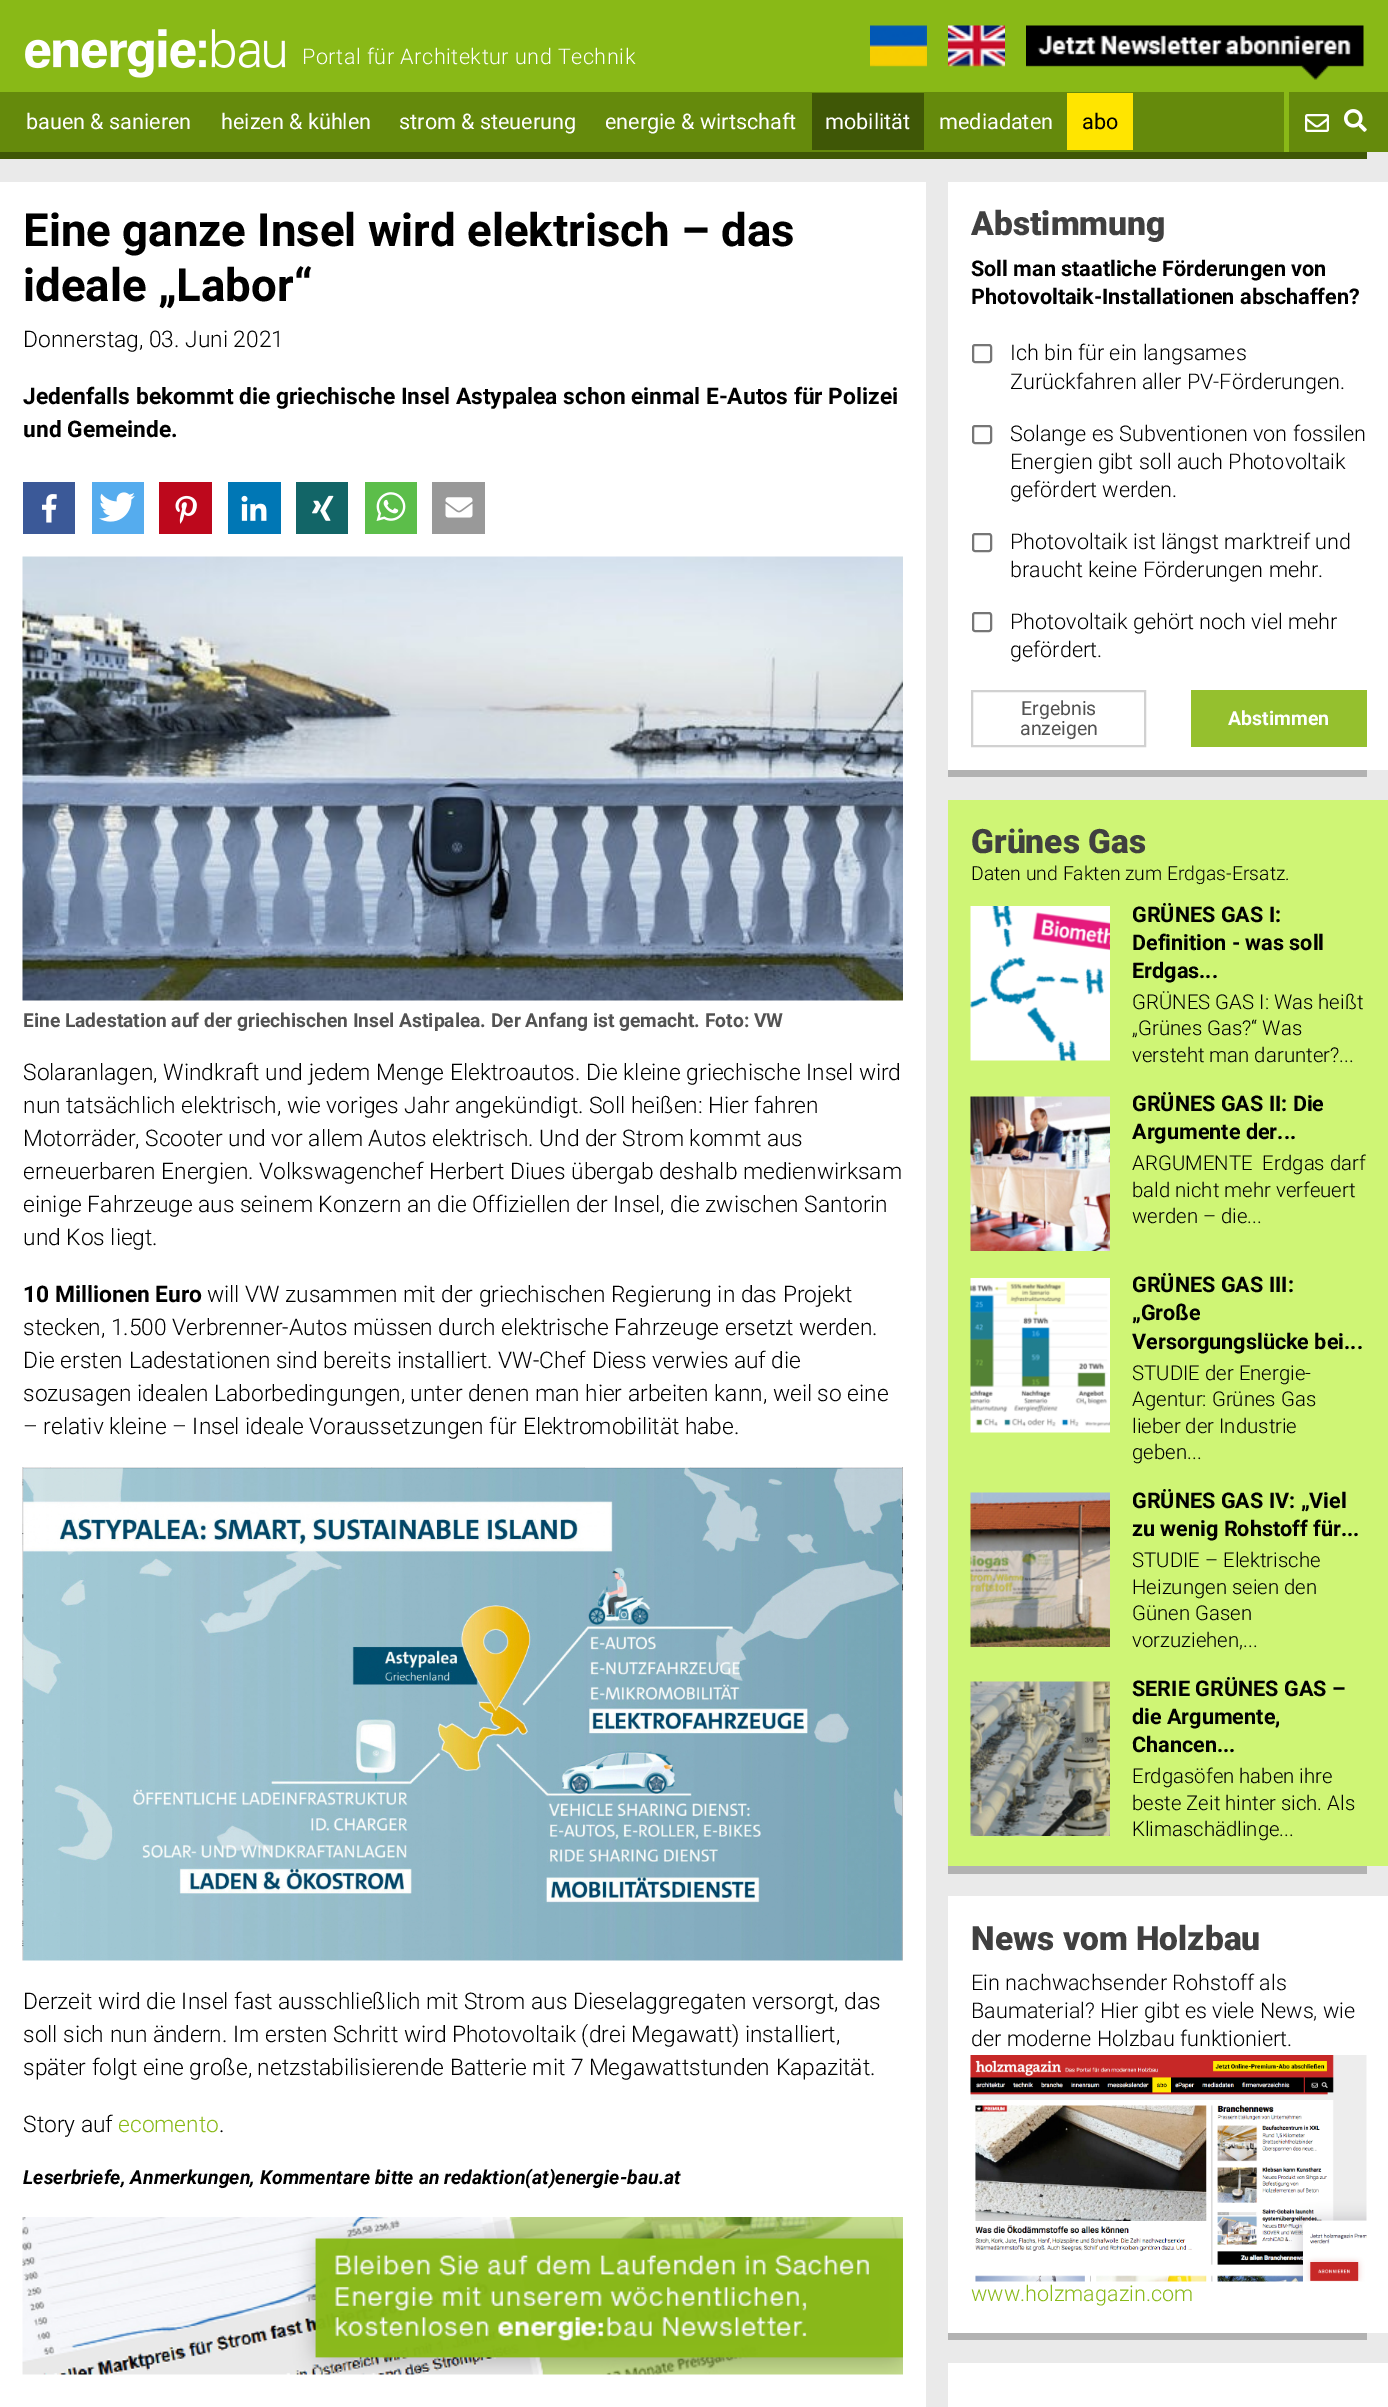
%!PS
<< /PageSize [1388 2407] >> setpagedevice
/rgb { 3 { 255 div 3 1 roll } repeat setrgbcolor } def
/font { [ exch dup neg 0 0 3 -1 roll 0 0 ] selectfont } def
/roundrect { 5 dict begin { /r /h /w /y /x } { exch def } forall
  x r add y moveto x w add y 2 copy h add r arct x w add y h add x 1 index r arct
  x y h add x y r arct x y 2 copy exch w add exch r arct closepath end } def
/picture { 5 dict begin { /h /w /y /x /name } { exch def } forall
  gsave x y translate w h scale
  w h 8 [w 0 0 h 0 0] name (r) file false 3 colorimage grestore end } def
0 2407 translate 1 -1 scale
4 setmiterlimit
234 234 234 rgb
0 0 1388 2407 rectfill
137 185 23 rgb
0 0 1388 92 rectfill
(img/1.rgb) 25 29 261 49 picture
(img/2.rgb) 870 25 57 42 picture
(img/3.rgb) 948 25 57 42 picture
(img/4.rgb) 1026 25 338 55 picture
[
  [0 92 1388 60 101 138 12]
  [812 93 112 57 63 87 6]
  [1067 93 66 57 255 229 0]
  [1284 92 5 60 137 185 23]
] { aload pop rgb rectfill } forall
(img/5.rgb) 1305 114 24 18 picture
(img/6.rgb) 1344 109 23 23 picture
[
  [0 152 1367 7 63 87 6]
  [0 182 926 2225 255 255 255]
  [23 482 52 52 59 89 152]
] { aload pop rgb rectfill } forall
(img/7.rgb) 42 494 15 29 picture
85 172 238 rgb
92 482 52 52 rectfill
(img/8.rgb) 99 492 36 30 picture
189 8 28 rgb
159 482 53 52 rectfill
(img/9.rgb) 175 495 22 29 picture
0 119 181 rgb
228 482 53 52 rectfill
(img/10.rgb) 241 495 26 26 picture
18 101 103 rgb
296 482 52 52 rectfill
(img/11.rgb) 312 495 22 26 picture
92 190 74 rgb
365 482 52 52 rectfill
(img/12.rgb) 376 492 30 29 picture
153 153 153 rgb
432 482 53 52 rectfill
(img/13.rgb) 445 497 28 21 picture
(img/14.rgb) 22 556 881 445 picture
(img/15.rgb) 22 1467 881 494 picture
(img/16.rgb) 22 2217 881 158 picture
255 255 255 rgb
948 182 440 588 rectfill
118 118 118 rgb
2 setlinewidth
973 345 18 17 2 roundrect stroke
973 426 18 17 2 roundrect stroke
973 534 18 17 2 roundrect stroke
973 613 18 18 2 roundrect stroke
209 209 209 rgb
972 691 173 55 rectstroke
[
  [1191 690 176 57 149 192 46]
  [948 770 419 7 178 178 178]
  [948 800 440 1066 207 245 117]
] { aload pop rgb rectfill } forall
(img/17.rgb) 970 906 140 155 picture
(img/18.rgb) 970 1096 140 155 picture
(img/19.rgb) 970 1278 140 155 picture
(img/20.rgb) 970 1492 140 155 picture
(img/21.rgb) 970 1681 140 155 picture
178 178 178 rgb
948 1866 419 8 rectfill
255 255 255 rgb
948 1896 440 437 rectfill
(img/22.rgb) 970 2055 397 227 picture
178 178 178 rgb
948 2333 419 7 rectfill
255 255 255 rgb
948 2363 440 44 rectfill
/Roboto-Light 21.6 font
302 64 moveto 0.5 0 (Portal für Architektur und Technik) ashow
/Roboto-Regular 21.6 font
[
  [(bauen & sanieren) 26 129]
  [(heizen & kühlen) 221 129]
  [(strom & steuerung) 399 129]
  [(energie & wirtschaft) 605 129]
  [(mobilität) 825 129]
  [(mediadaten) 939 129]
] { aload pop moveto show } forall
0 0 0 rgb
1082 129 moveto (abo) show
/Roboto-Bold 45.6 font
23 246 moveto (Eine ganze Insel wird elektrisch – das) show
23 301 moveto (ideale „Labor“) show
/Roboto-Light 22.8 font
23 347 moveto (Donnerstag, 03. Juni 2021) show
/Roboto-Bold 22.8 font
23 404 moveto (Jedenfalls bekommt die griechische Insel Astypalea schon einmal E-Autos für Polizei) show
23 437 moveto (und Gemeinde.) show
/Roboto-Bold 19.2 font
83 83 83 rgb
23 1027 moveto (Eine Ladestation auf der griechischen Insel Astipalea. Der Anfang ist gemacht. Foto: VW) show
/Roboto-Light 22.8 font
0 0 0 rgb
[
  [(Solaranlagen, Windkraft und jedem Menge Elektroautos. Die kleine griechische Insel wird) 23 1080]
  [(nun tatsächlich elektrisch, wie voriges Jahr angekündigt. Soll heißen: Hier fahren) 23 1113]
  [(Motorräder, Scooter und vor allem Autos elektrisch. Und der Strom kommt aus) 23 1146]
  [(erneuerbaren Energien. Volkswagenchef Herbert Diues übergab deshalb medienwirksam) 23 1179]
  [(einige Fahrzeuge aus seinem Konzern an die Offiziellen der Insel, die zwischen Santorin) 23 1212]
  [(und Kos liegt.) 23 1245]
] { aload pop moveto show } forall
/Roboto-Bold 22.8 font
23 1302 moveto (10 Millionen Euro) show
/Roboto-Light 22.8 font
[
  [(will VW zusammen mit der griechischen Regierung in das Projekt) 207 1302]
  [(stecken, 1.500 Verbrenner-Autos müssen durch elektrische Fahrzeuge ersetzt werden.) 23 1335]
  [(Die ersten Ladestationen sind bereits installiert. VW-Chef Diess verwies auf die) 23 1368]
  [(sozusagen idealen Laborbedingungen, unter denen man hier arbeiten kann, weil so eine) 23 1401]
  [(– relativ kleine – Insel ideale Voraussetzungen für Elektromobilität habe.) 23 1434]
  [(Derzeit wird die Insel fast ausschließlich mit Strom aus Dieselaggregaten versorgt, das) 23 2009]
  [(soll sich nun ändern. Im ersten Schritt wird Photovoltaik \(drei Megawatt\) installiert,) 23 2042]
  [(später folgt eine große, netzstabilisierende Batterie mit 7 Megawattstunden Kapazität.) 23 2075]
  [(Story auf) 23 2132]
] { aload pop moveto show } forall
137 185 23 rgb
118 2132 moveto (ecomento) show
0 0 0 rgb
219 2132 moveto (.) show
/Roboto-BoldItalic 19.4 font
23 2184 moveto (Leserbriefe, Anmerkungen, Kommentare bitte an redaktion\(at\)energie-bau.at) show
/Roboto-Black 33.5 font
64 64 64 rgb
971 235 moveto (Abstimmung) show
/Roboto-Bold 21.6 font
0 0 0 rgb
971 276 moveto (Soll man staatliche Förderungen von) show
971 304 moveto (Photovoltaik-Installationen abschaffen?) show
/Roboto-Light 21.6 font
[
  [(Ich bin für ein langsames) 1010 360]
  [(Zurückfahren aller PV-Förderungen.) 1010 389]
  [(Solange es Subventionen von fossilen) 1010 441]
  [(Energien gibt soll auch Photovoltaik) 1010 469]
  [(gefördert werden.) 1010 497]
  [(Photovoltaik ist längst marktreif und) 1010 549]
  [(braucht keine Förderungen mehr.) 1010 577]
  [(Photovoltaik gehört noch viel mehr) 1010 629]
  [(gefördert.) 1010 657]
] { aload pop moveto show } forall
/Roboto-Regular 19.5 font
83 83 83 rgb
1021 715 moveto (Ergebnis) show
1020 735 moveto (anzeigen) show
/Roboto-Bold 19.5 font
255 255 255 rgb
1228 725 moveto (Abstimmen) show
/Roboto-Black 33.5 font
64 64 64 rgb
971 853 moveto (Grünes Gas) show
/Roboto-Light 19.4 font
0 0 0 rgb
971 880 moveto (Daten und Fakten zum Erdgas-Ersatz.) show
/Roboto-Bold 21.6 font
[
  [(GRÜNES GAS I:) 1132 922]
  [(Definition - was soll) 1132 950]
  [(Erdgas...) 1132 978]
] { aload pop moveto show } forall
/Roboto-Light 20.4 font
[
  [(GRÜNES GAS I: Was heißt) 1132 1009]
  [(„Grünes Gas?“ Was) 1132 1035]
  [(versteht man darunter?...) 1132 1062]
] { aload pop moveto show } forall
/Roboto-Bold 21.6 font
1132 1111 moveto (GRÜNES GAS II: Die) show
1132 1139 moveto (Argumente der...) show
/Roboto-Light 20.4 font
[
  [(ARGUMENTE  Erdgas darf) 1132 1170]
  [(bald nicht mehr verfeuert) 1132 1197]
  [(werden – die...) 1132 1223]
] { aload pop moveto show } forall
/Roboto-Bold 21.6 font
[
  [(GRÜNES GAS III:) 1132 1292]
  [(„Große) 1132 1320]
  [(Versorgungslücke bei...) 1132 1349]
] { aload pop moveto show } forall
/Roboto-Light 20.4 font
[
  [(STUDIE der Energie-) 1132 1380]
  [(Agentur: Grünes Gas) 1132 1406]
  [(lieber der Industrie) 1132 1433]
  [(geben...) 1132 1459]
] { aload pop moveto show } forall
/Roboto-Bold 21.6 font
1132 1508 moveto (GRÜNES GAS IV: „Viel) show
1132 1536 moveto (zu wenig Rohstoff für...) show
/Roboto-Light 20.4 font
[
  [(STUDIE – Elektrische) 1132 1567]
  [(Heizungen seien den) 1132 1594]
  [(Günen Gasen) 1132 1620]
  [(vorzuziehen,...) 1132 1647]
] { aload pop moveto show } forall
/Roboto-Bold 21.6 font
[
  [(SERIE GRÜNES GAS –) 1132 1696]
  [(die Argumente,) 1132 1724]
  [(Chancen...) 1132 1752]
] { aload pop moveto show } forall
/Roboto-Light 20.4 font
[
  [(Erdgasöfen haben ihre) 1132 1783]
  [(beste Zeit hinter sich. Als) 1132 1810]
  [(Klimaschädlinge...) 1132 1836]
] { aload pop moveto show } forall
/Roboto-Black 33.5 font
64 64 64 rgb
971 1950 moveto (News vom Holzbau) show
/Roboto-Light 21.6 font
0 0 0 rgb
[
  [(Ein nachwachsender Rohstoff als) 971 1990]
  [(Baumaterial? Hier gibt es viele News, wie) 971 2018]
  [(der moderne Holzbau funktioniert.) 971 2046]
] { aload pop moveto show } forall
137 185 23 rgb
971 2301 moveto (www.holzmagazin.com) show
showpage
